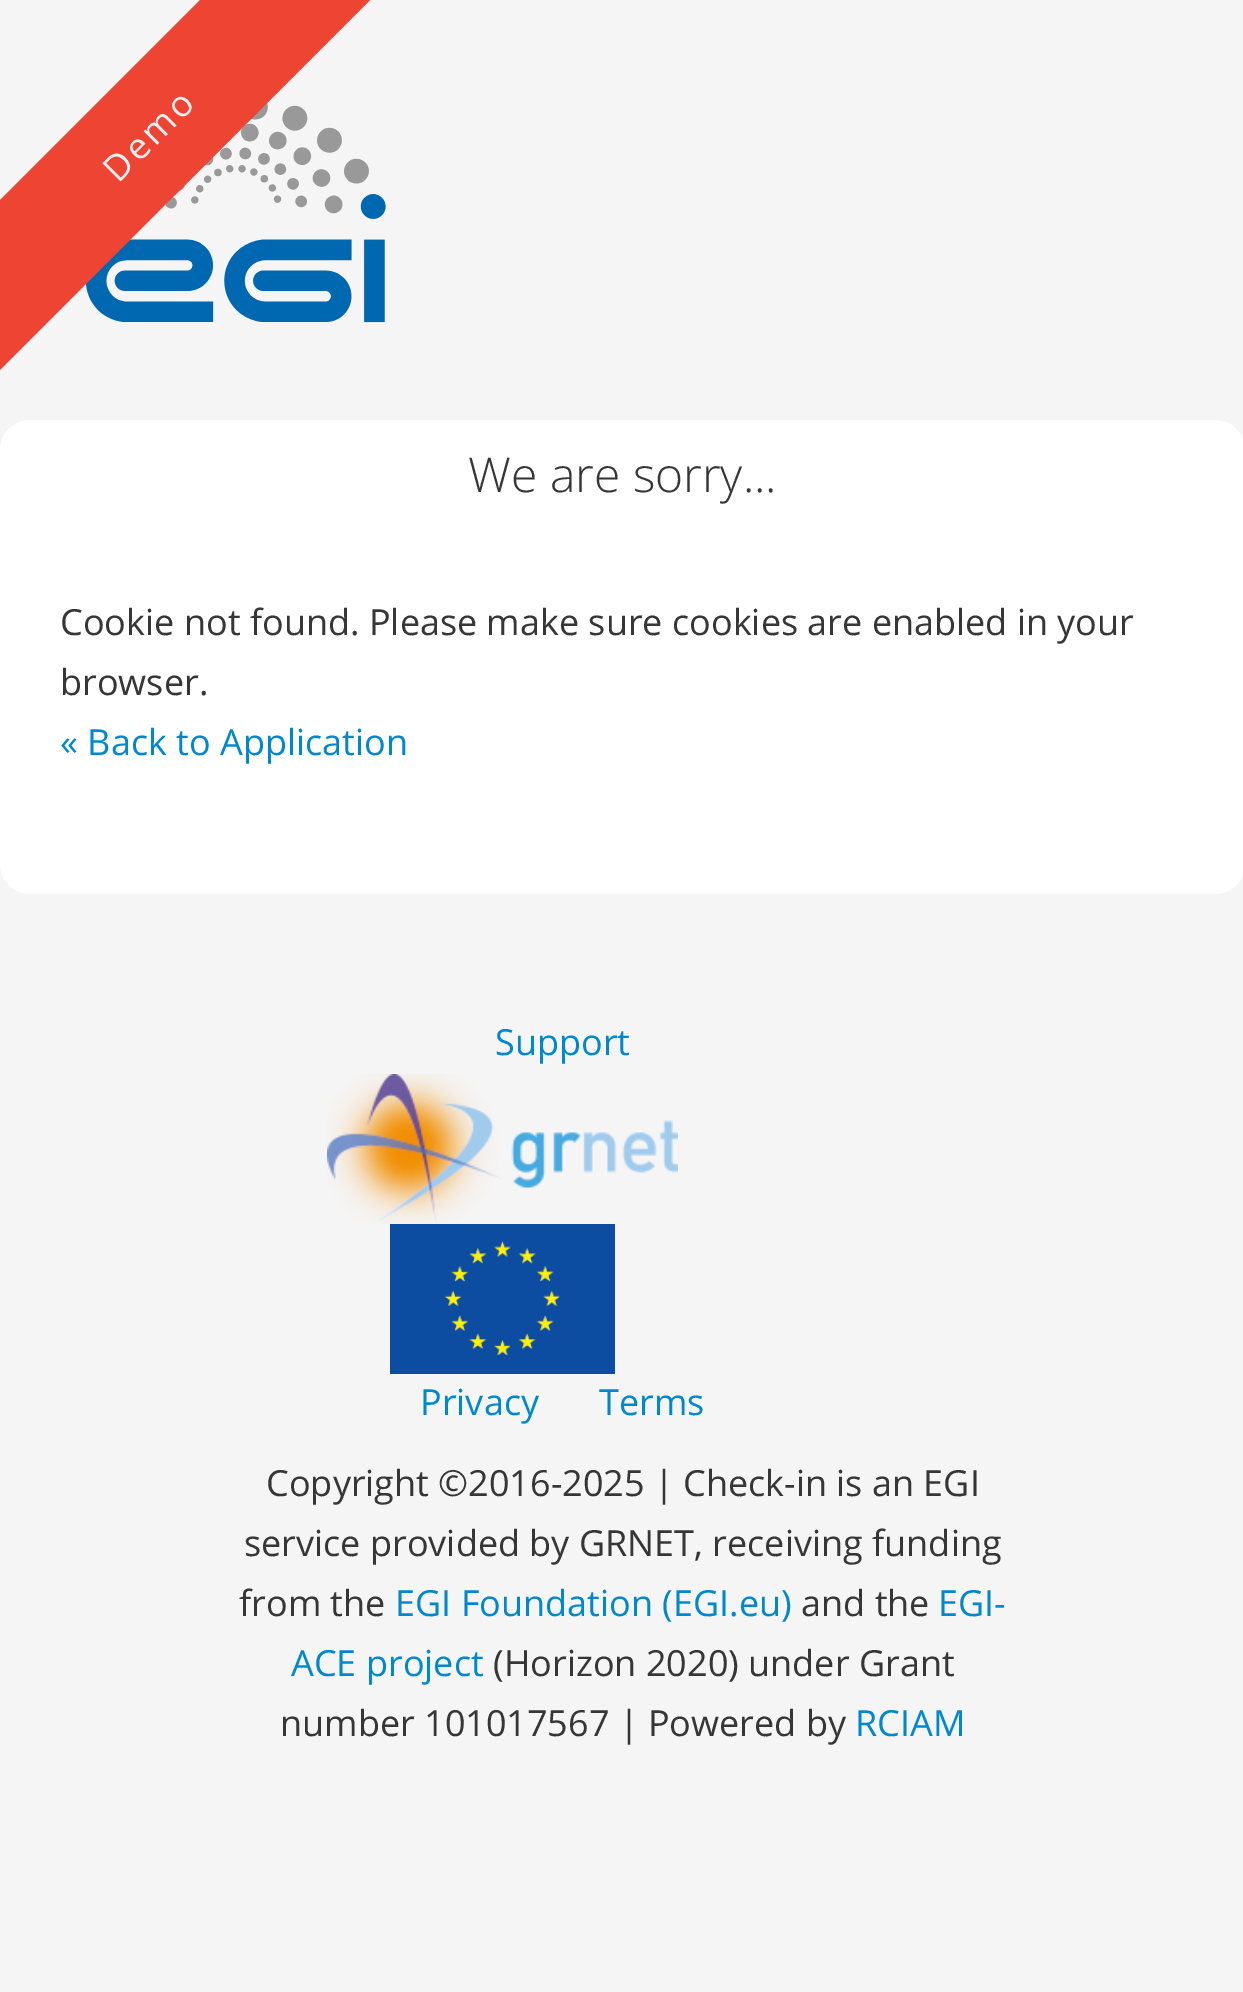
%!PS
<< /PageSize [1243 1992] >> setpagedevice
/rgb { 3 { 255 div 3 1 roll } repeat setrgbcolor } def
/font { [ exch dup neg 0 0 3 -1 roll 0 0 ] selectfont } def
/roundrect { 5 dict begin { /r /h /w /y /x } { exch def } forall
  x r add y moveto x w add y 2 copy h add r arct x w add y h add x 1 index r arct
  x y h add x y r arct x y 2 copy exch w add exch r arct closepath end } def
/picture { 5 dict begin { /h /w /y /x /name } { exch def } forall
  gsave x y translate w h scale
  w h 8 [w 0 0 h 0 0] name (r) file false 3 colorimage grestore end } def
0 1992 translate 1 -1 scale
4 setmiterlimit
245 245 245 rgb
0 0 1243 1992 rectfill
(img/1.rgb) 86 103 300 220 picture
238 68 51 rgb
-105 305 moveto 320 -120 lineto 405 -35 lineto -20 390 lineto closepath fill
255 255 255 rgb
0 420 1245 474 30 roundrect fill
(img/2.rgb) 327 1074 351 150 picture
(img/3.rgb) 390 1224 225 150 picture
/OpenSans-Regular 36 font
240 240 240 rgb
gsave 118 184 translate -45 rotate 0 0 moveto 3 0 (Demo) ashow grestore
/OpenSans-Light 48 font
54 54 54 rgb
468 492 moveto (We are sorry...) show
/OpenSans-Regular 36 font
60 635 moveto (Cookie not found. Please make sure cookies are enabled in your) show
60 695 moveto (browser.) show
0 136 206 rgb
[
  [(« Back to Application) 60 755]
  [(Support) 495 1055]
  [(Privacy) 420 1415]
  [(Terms) 599 1415]
] { aload pop moveto show } forall
54 54 54 rgb
[
  [(Copyright ©2016-2025 | Check-in is an EGI) 266 1496]
  [(service provided by GRNET, receiving funding) 244 1556]
  [(from the) 239 1616]
] { aload pop moveto show } forall
0 136 206 rgb
395 1616 moveto (EGI Foundation \(EGI.eu\)) show
54 54 54 rgb
801 1616 moveto (and the) show
0 136 206 rgb
938 1616 moveto (EGI-) show
291 1676 moveto (ACE project) show
54 54 54 rgb
493 1676 moveto (\(Horizon 2020\) under Grant) show
280 1736 moveto (number 101017567 | Powered by) show
0 136 206 rgb
855 1736 moveto (RCIAM) show
showpage
